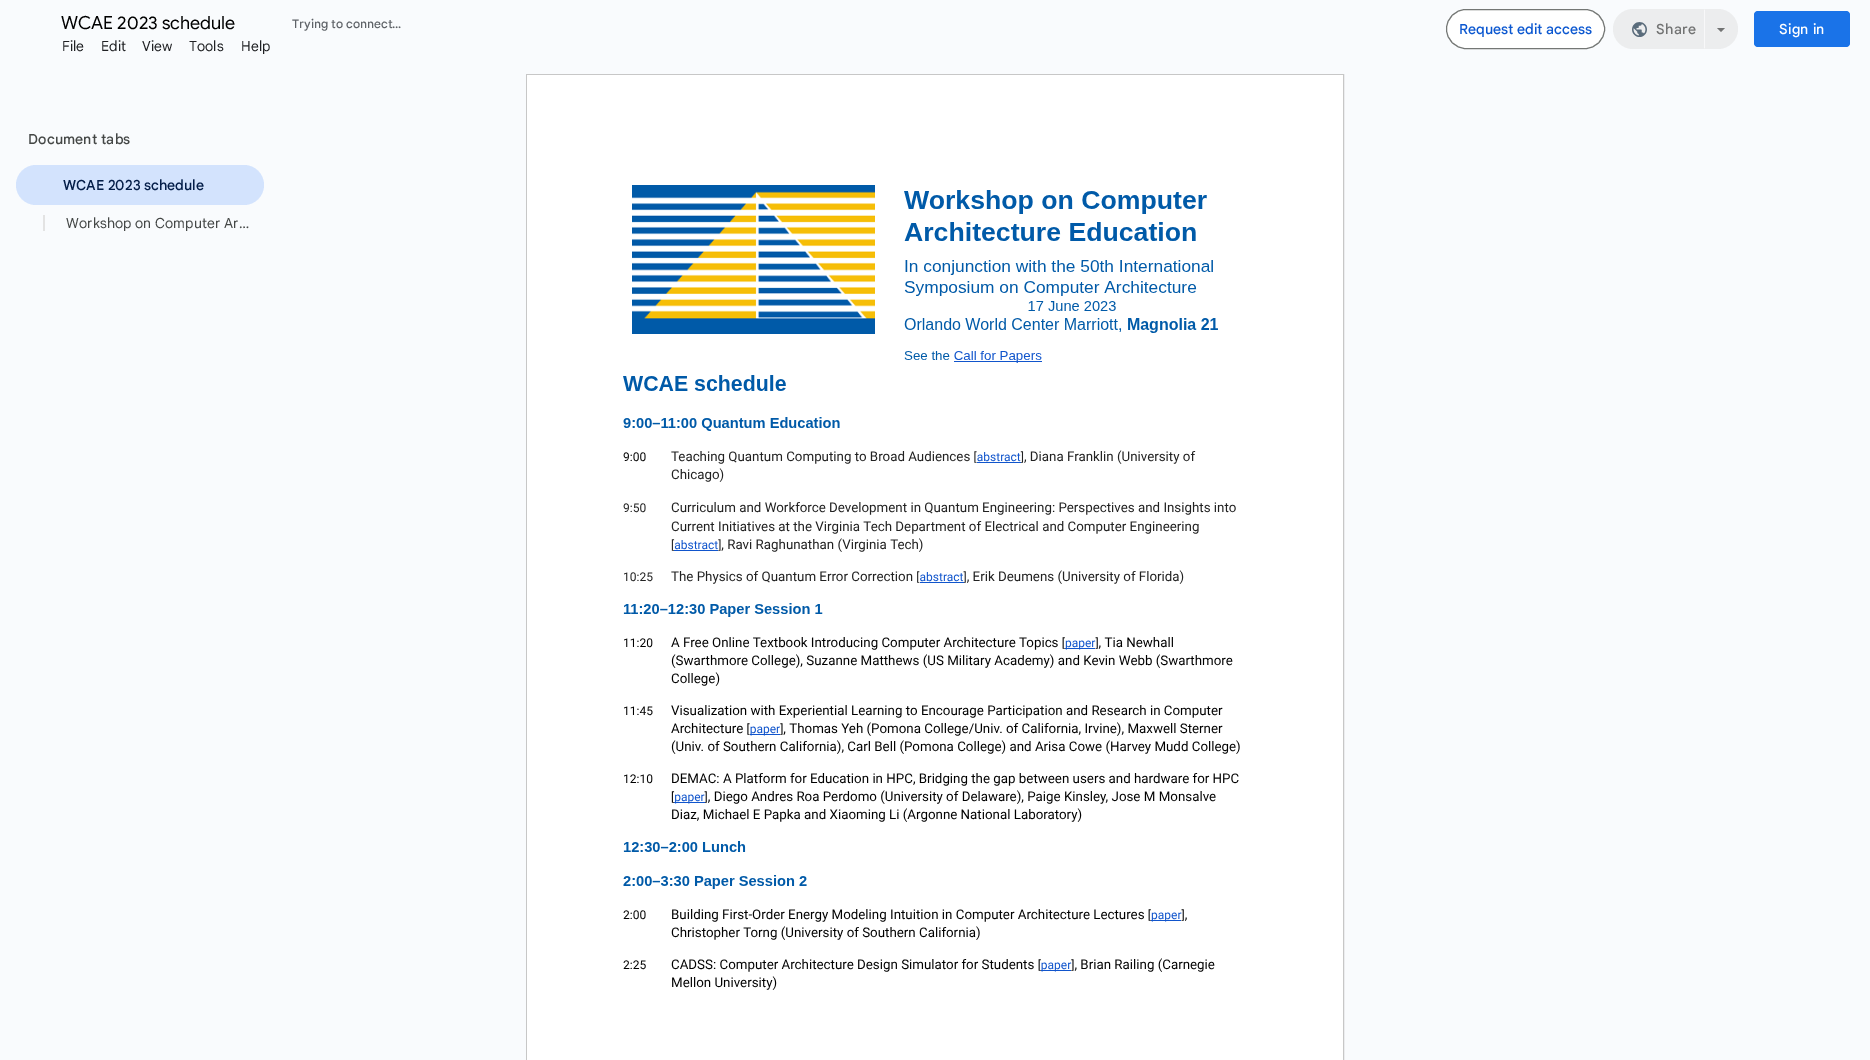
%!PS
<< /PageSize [1870 1060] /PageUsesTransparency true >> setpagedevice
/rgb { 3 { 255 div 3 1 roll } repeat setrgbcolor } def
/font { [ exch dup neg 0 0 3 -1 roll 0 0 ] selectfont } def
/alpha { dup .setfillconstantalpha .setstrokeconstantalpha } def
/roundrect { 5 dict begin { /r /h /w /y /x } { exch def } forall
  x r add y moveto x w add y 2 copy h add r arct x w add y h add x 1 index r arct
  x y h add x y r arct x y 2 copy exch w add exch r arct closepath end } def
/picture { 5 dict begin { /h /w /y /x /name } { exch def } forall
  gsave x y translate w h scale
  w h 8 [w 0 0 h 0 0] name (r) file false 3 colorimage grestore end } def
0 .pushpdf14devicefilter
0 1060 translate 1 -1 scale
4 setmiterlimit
249 251 253 rgb
0 0 1870 1060 rectfill
255 255 255 rgb
1446.5 9.5 158 39 19.5 roundrect gsave fill grestore
116 119 117 rgb
stroke
236 237 238 rgb
1633 9 moveto 1705 9 lineto 1705 49 lineto 1633 49 lineto 1622 49 1613 40 1613 29 curveto 1613 18 1622 9 1633 9 curveto closepath fill
(img/1.rgb) 1632 22 15 15 picture
0.62 alpha
228 228 228 rgb
1704 9 moveto 1718 9 lineto 1729 9 1738 18 1738 29 curveto 1738 40 1729 49 1718 49 curveto 1704 49 lineto closepath fill
1 alpha
248 248 249 rgb
1705 10 moveto 1704 9 lineto 1704 49 lineto 1705 48 lineto closepath fill
114 115 115 rgb
1717 28 moveto 1725 28 lineto 1721 32 lineto closepath fill
26 115 232 rgb
1754 11 96 36 4 roundrect fill
211 227 253 rgb
16 165 248 40 20 roundrect fill
227 227 227 rgb
43 215 2 16 rectfill
199 199 199 rgb
526.5 74.5 817 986 rectstroke
(img/2.rgb) 527 75 816 985 picture
/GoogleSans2-Regular 18 font
0 0 0 rgb
61 29 moveto (WCAE 2023 schedule) show
/GoogleSans-Medium 12 font
95 99 104 rgb
292 28 moveto (Trying to connect…) show
/GoogleSans-Medium 14 font
11 87 208 rgb
1459 34 moveto (Request edit access) show
114 115 115 rgb
1656 34 moveto 0.25 0 (Share) ashow
255 255 255 rgb
1779 34 moveto 0.25 0 (Sign in) ashow
/GoogleSans-Regular 14 font
32 33 36 rgb
[
  [(File) 62 51]
  [(Edit) 101 51]
  [(View) 142 51]
  [(Tools) 189 51]
  [(Help) 241 51]
] { aload pop moveto show } forall
/GoogleSans-Medium 14 font
68 71 70 rgb
28 144 moveto 0.1 0 (Document tabs) ashow
4 30 73 rgb
63 190 moveto (WCAE 2023 schedule) show
/GoogleSans-Regular 14 font
68 71 70 rgb
66 228 moveto 0.1 0 (Workshop on Computer Ar…) ashow
.poppdf14devicefilter showpage
